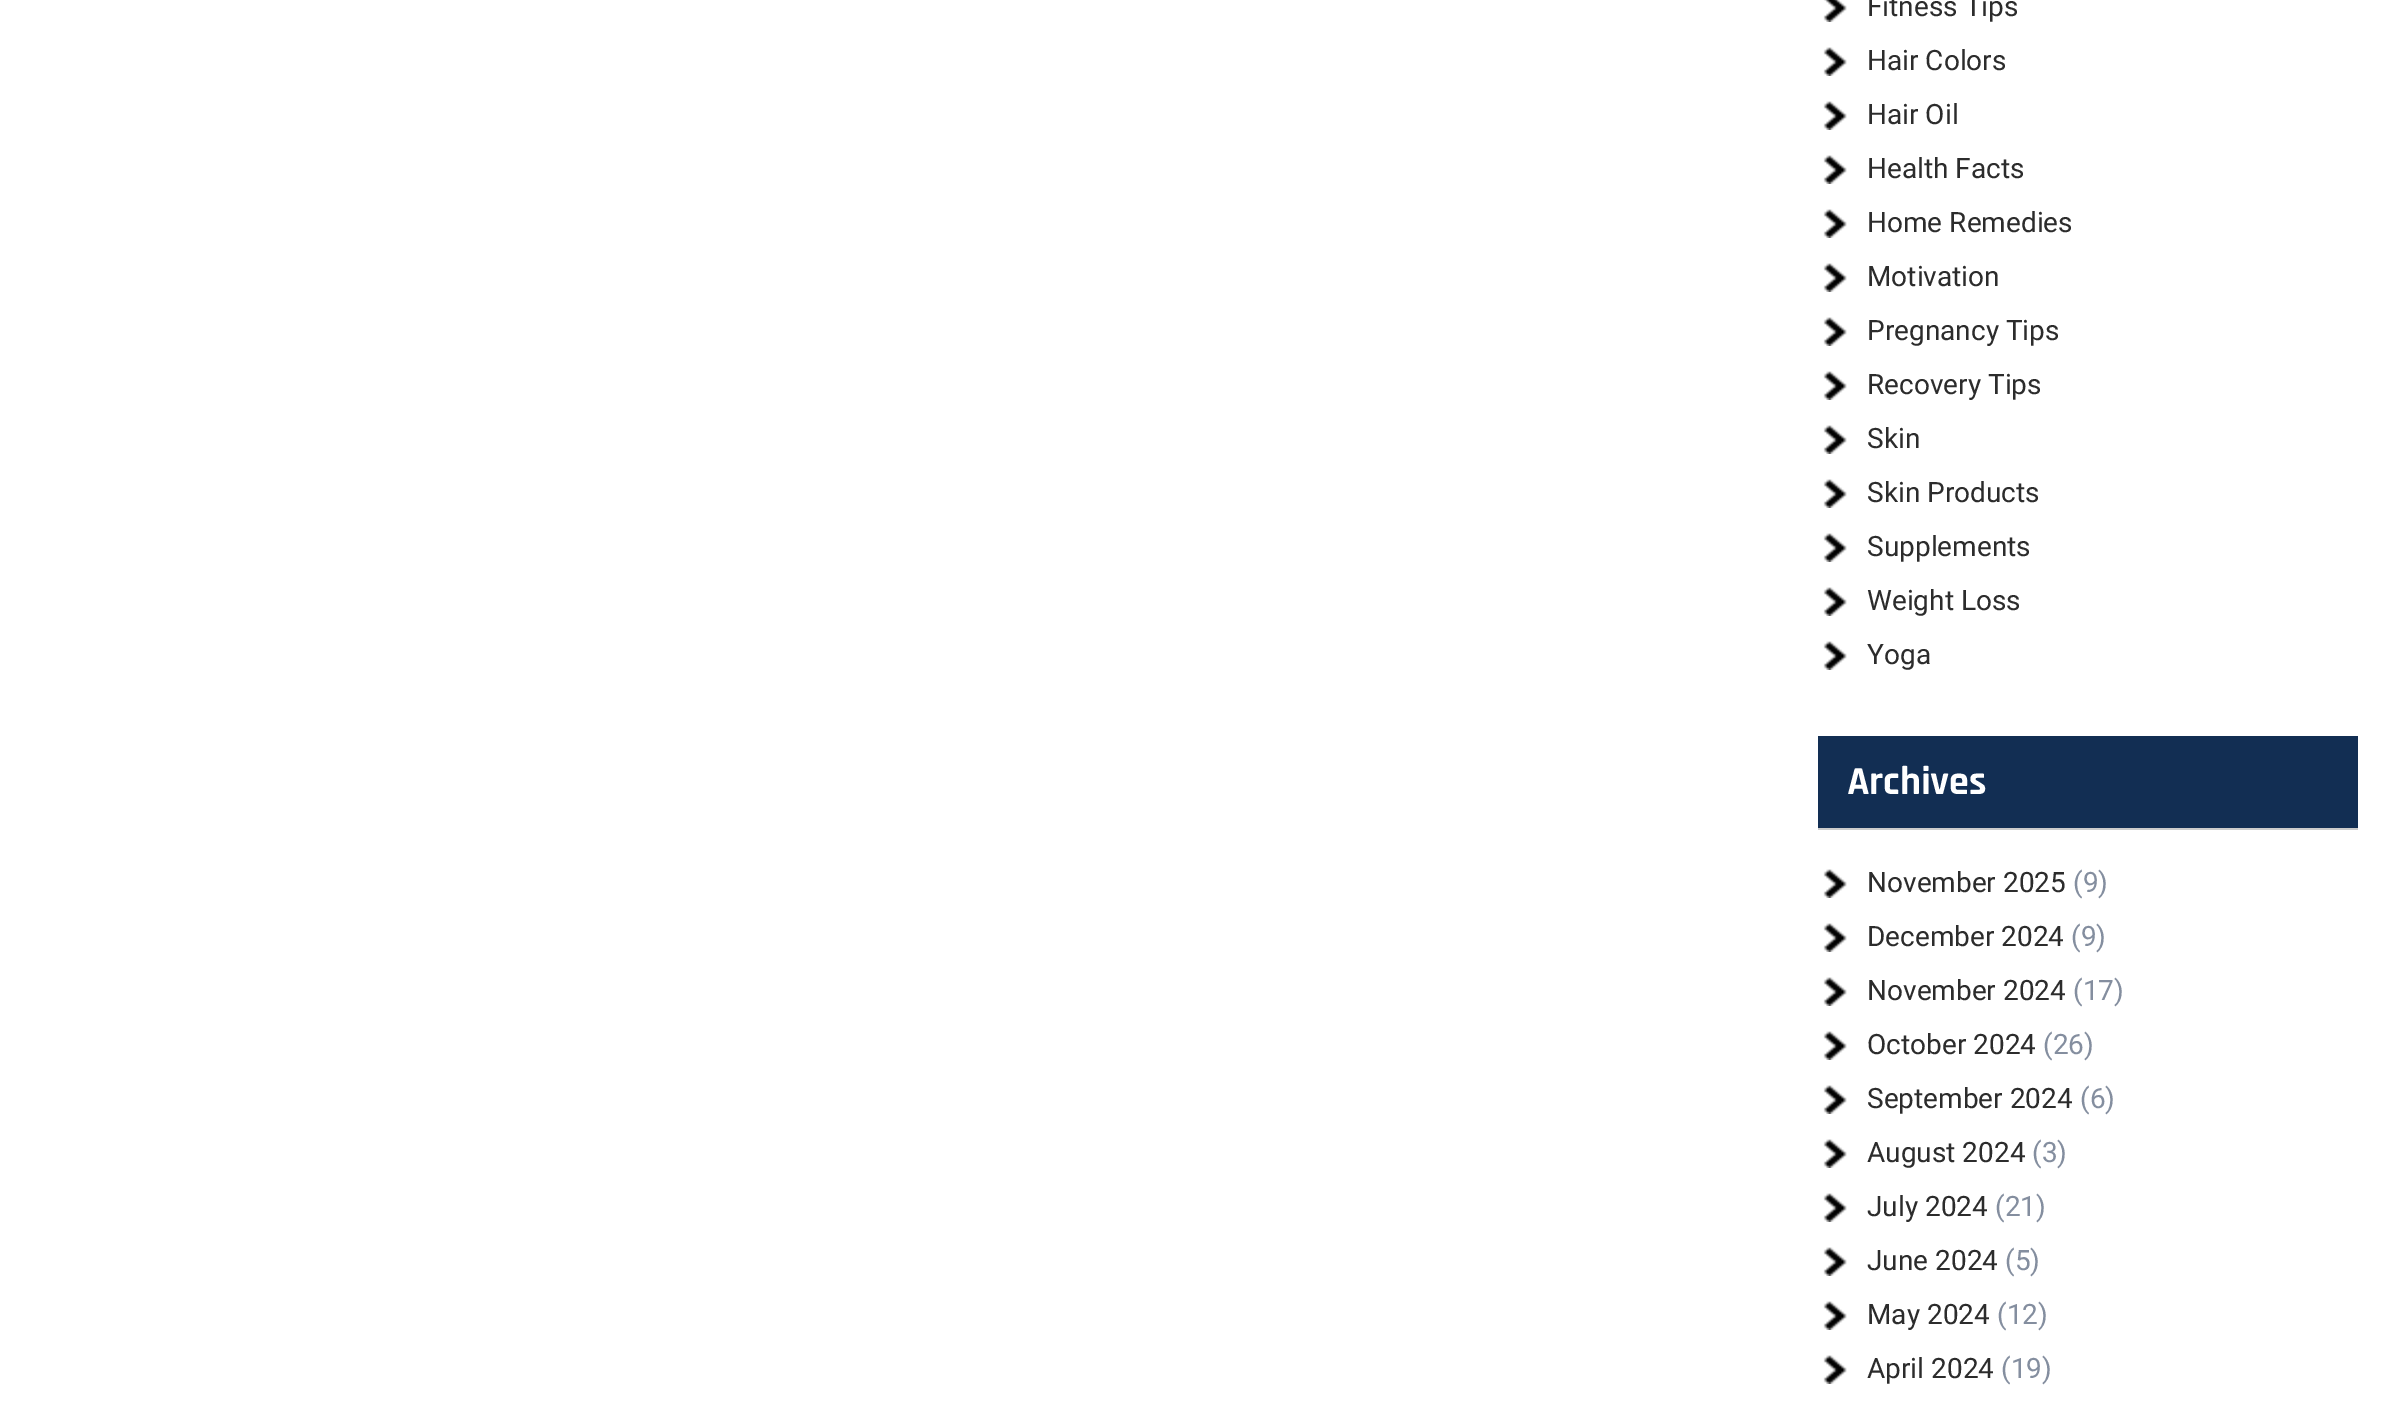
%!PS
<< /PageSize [2393 1407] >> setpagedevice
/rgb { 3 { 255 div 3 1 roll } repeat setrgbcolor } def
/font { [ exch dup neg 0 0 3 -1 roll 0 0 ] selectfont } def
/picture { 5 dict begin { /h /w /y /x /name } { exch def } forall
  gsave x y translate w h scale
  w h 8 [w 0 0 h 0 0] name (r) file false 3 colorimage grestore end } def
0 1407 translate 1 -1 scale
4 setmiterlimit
255 255 255 rgb
0 0 2393 1407 rectfill
(img/1.rgb) 1823 0 24 22 picture
(img/2.rgb) 1823 47 24 29 picture
(img/2.rgb) 1823 101 24 29 picture
(img/2.rgb) 1823 155 24 29 picture
(img/2.rgb) 1823 209 24 29 picture
(img/2.rgb) 1823 263 24 29 picture
(img/2.rgb) 1823 317 24 29 picture
(img/2.rgb) 1823 371 24 29 picture
(img/2.rgb) 1823 425 24 29 picture
(img/2.rgb) 1823 479 24 29 picture
(img/2.rgb) 1823 533 24 29 picture
(img/2.rgb) 1823 587 24 29 picture
(img/2.rgb) 1823 641 24 29 picture
18 46 83 rgb
1818 736 540 92 rectfill
204 204 204 rgb
1818 828 540 2 rectfill
(img/2.rgb) 1823 869 24 29 picture
(img/2.rgb) 1823 923 24 29 picture
(img/2.rgb) 1823 977 24 29 picture
(img/2.rgb) 1823 1031 24 29 picture
(img/2.rgb) 1823 1085 24 29 picture
(img/2.rgb) 1823 1139 24 29 picture
(img/2.rgb) 1823 1193 24 29 picture
(img/2.rgb) 1823 1247 24 29 picture
(img/2.rgb) 1823 1301 24 29 picture
(img/2.rgb) 1823 1355 24 29 picture
/Roboto-Regular 28 font
44 44 44 rgb
[
  [(Fitness Tips) 1867 16]
  [(Hair Colors) 1867 70]
  [(Hair Oil) 1867 124]
  [(Health Facts) 1867 178]
  [(Home Remedies) 1867 232]
  [(Motivation) 1867 286]
  [(Pregnancy Tips) 1867 340]
  [(Recovery Tips) 1867 394]
  [(Skin) 1867 448]
  [(Skin Products) 1867 502]
  [(Supplements) 1867 556]
  [(Weight Loss) 1867 610]
  [(Yoga) 1867 664]
] { aload pop moveto show } forall
/Rajdhani-Bold 40 font
255 255 255 rgb
1847 794 moveto (Archives) show
/Roboto-Regular 28 font
44 44 44 rgb
1867 892 moveto (November 2025) show
132 142 159 rgb
2073 892 moveto (\(9\)) show
44 44 44 rgb
1867 946 moveto (December 2024) show
132 142 159 rgb
2071 946 moveto (\(9\)) show
44 44 44 rgb
1867 1000 moveto (November 2024) show
132 142 159 rgb
2073 1000 moveto (\(17\)) show
44 44 44 rgb
1867 1054 moveto (October 2024) show
132 142 159 rgb
2043 1054 moveto (\(26\)) show
44 44 44 rgb
1867 1108 moveto (September 2024) show
132 142 159 rgb
2080 1108 moveto (\(6\)) show
44 44 44 rgb
1867 1162 moveto (August 2024) show
132 142 159 rgb
2032 1162 moveto (\(3\)) show
44 44 44 rgb
1867 1216 moveto (July 2024) show
132 142 159 rgb
1995 1216 moveto (\(21\)) show
44 44 44 rgb
1867 1270 moveto (June 2024) show
132 142 159 rgb
2005 1270 moveto (\(5\)) show
44 44 44 rgb
1867 1324 moveto (May 2024) show
132 142 159 rgb
1997 1324 moveto (\(12\)) show
44 44 44 rgb
1867 1378 moveto (April 2024) show
132 142 159 rgb
2001 1378 moveto (\(19\)) show
showpage
